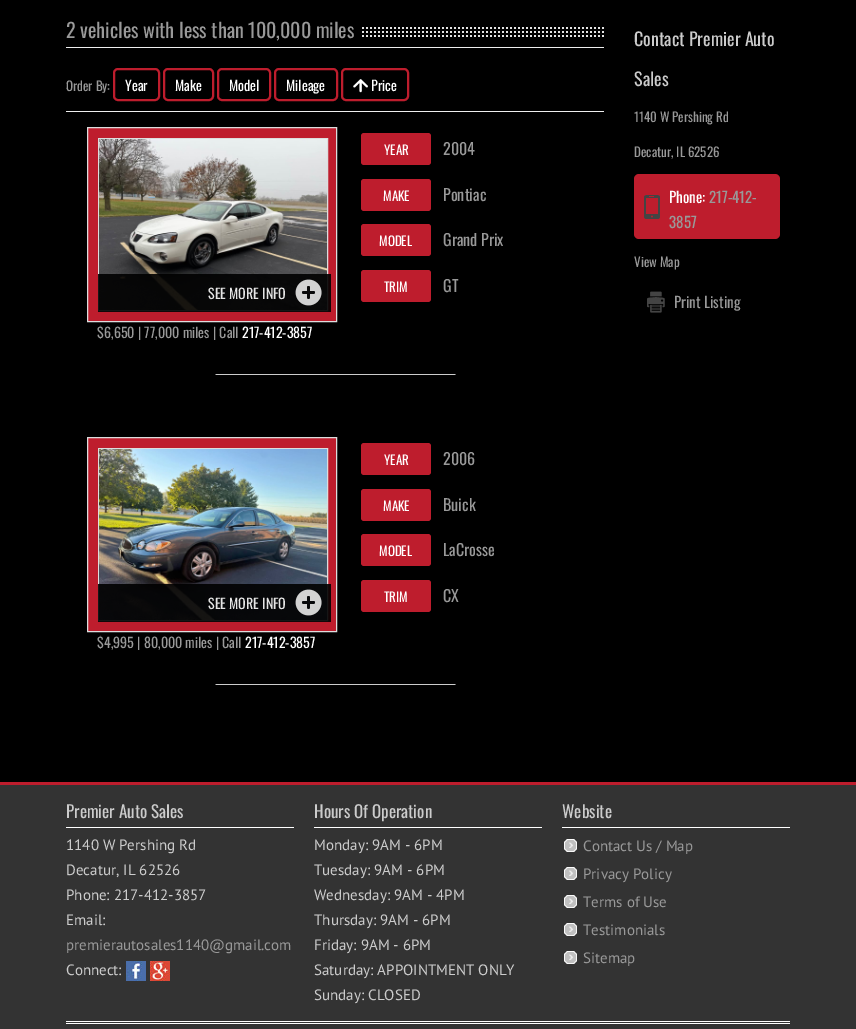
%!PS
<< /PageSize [856 1029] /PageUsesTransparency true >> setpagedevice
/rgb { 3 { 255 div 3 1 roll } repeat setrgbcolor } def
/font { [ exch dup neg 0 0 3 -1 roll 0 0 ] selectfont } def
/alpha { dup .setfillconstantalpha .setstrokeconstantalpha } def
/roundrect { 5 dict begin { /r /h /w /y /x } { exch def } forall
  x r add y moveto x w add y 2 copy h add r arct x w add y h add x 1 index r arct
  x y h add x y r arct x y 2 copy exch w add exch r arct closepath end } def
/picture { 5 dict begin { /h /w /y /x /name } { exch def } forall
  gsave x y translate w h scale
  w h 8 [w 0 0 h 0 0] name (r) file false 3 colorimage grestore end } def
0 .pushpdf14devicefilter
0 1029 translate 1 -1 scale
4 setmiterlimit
0 0 0 rgb
0 0 856 1029 rectfill
238 238 238 rgb
66 47 538 1 rectfill
(img/1.rgb) 362 27 242 10 picture
190 29 45 rgb
2 setlinewidth
114 69 45 31 4 roundrect stroke
164 69 49 31 4 roundrect stroke
218 69 52 31 4 roundrect stroke
275 69 62 31 4 roundrect stroke
342 69 66 31 4 roundrect stroke
(img/2.rgb) 353 79 15 14 picture
238 238 238 rgb
66 111 538 1 rectfill
190 29 45 rgb
361 133 70 32 3 roundrect fill
361 179 70 32 3 roundrect fill
361 224 70 32 3 roundrect fill
361 270 70 32 3 roundrect fill
87.5 127.5 moveto 336.5 127.5 lineto 336.5 321.5 lineto 87.5 321.5 lineto closepath gsave fill grestore
221 221 221 rgb
1 setlinewidth
stroke
98.5 138.5 229 172 rectstroke
(img/3.rgb) 99 139 228 171 picture
0.9 alpha
0 0 0 rgb
98 274 233 38 rectfill
1 alpha
(img/4.rgb) 295 279 27 27 picture
(img/5.rgb) 215 374 241 1 picture
190 29 45 rgb
361 443 70 32 3 roundrect fill
361 489 70 32 3 roundrect fill
361 534 70 32 3 roundrect fill
361 580 70 32 3 roundrect fill
87.5 437.5 moveto 336.5 437.5 lineto 336.5 631.5 lineto 87.5 631.5 lineto closepath gsave fill grestore
221 221 221 rgb
stroke
98.5 448.5 229 172 rectstroke
(img/6.rgb) 99 449 228 171 picture
0.9 alpha
0 0 0 rgb
98 584 233 38 rectfill
1 alpha
(img/7.rgb) 295 589 27 27 picture
(img/5.rgb) 215 684 241 1 picture
190 29 45 rgb
634 174 146 65 5 roundrect fill
(img/8.rgb) 644 195 16 24 picture
(img/9.rgb) 647 291 18 22 picture
[
  [0 785 856 244 51 51 51]
  [0 782 856 3 190 29 45]
  [66 827 228 1 255 255 255]
] { aload pop rgb rectfill } forall
(img/10.rgb) 126 961 20 20 picture
(img/11.rgb) 150 961 20 20 picture
314 827 228 1 rectfill
562 827 228 1 rectfill
(img/12.rgb) 564 839 13 13 picture
(img/12.rgb) 564 867 13 13 picture
(img/12.rgb) 564 895 13 13 picture
(img/12.rgb) 564 923 13 13 picture
(img/12.rgb) 564 951 13 13 picture
66 1021 724 1 rectfill
66 1023 724 1 rectfill
/Oswald-Regular 20 font
153 153 153 rgb
66 38 moveto (2 vehicles with less than 100,000 miles) show
/Oswald-Regular 13 font
66 91 moveto (Order By:) show
/Oswald-Regular 14 font
255 255 255 rgb
[
  [(Year) 125 91]
  [(Make) 175 91]
  [(Model) 229 91]
  [(Mileage) 286 91]
  [(Price) 371 91]
] { aload pop moveto show } forall
/Oswald-Regular 13 font
384 155 moveto (YEAR) show
/Oswald-Regular 16 font
153 153 153 rgb
443 155 moveto (2004) show
/Oswald-Regular 13 font
255 255 255 rgb
383 201 moveto (MAKE) show
/Oswald-Regular 16 font
153 153 153 rgb
443 201 moveto (Pontiac) show
/Oswald-Regular 13 font
255 255 255 rgb
379 246 moveto (MODEL) show
/Oswald-Regular 16 font
153 153 153 rgb
443 246 moveto (Grand Prix) show
/Oswald-Regular 13 font
255 255 255 rgb
384 292 moveto (TRIM) show
/Oswald-Regular 16 font
153 153 153 rgb
443 292 moveto (GT) show
/Oswald-Regular 14 font
230 230 230 rgb
208 299 moveto (SEE MORE INFO) show
153 153 153 rgb
97 338 moveto ($6,650 | 77,000 miles | Call) show
255 255 255 rgb
242 338 moveto (217-412-3857) show
/Oswald-Regular 13 font
384 465 moveto (YEAR) show
/Oswald-Regular 16 font
153 153 153 rgb
443 465 moveto (2006) show
/Oswald-Regular 13 font
255 255 255 rgb
383 511 moveto (MAKE) show
/Oswald-Regular 16 font
153 153 153 rgb
443 511 moveto (Buick) show
/Oswald-Regular 13 font
255 255 255 rgb
379 556 moveto (MODEL) show
/Oswald-Regular 16 font
153 153 153 rgb
443 556 moveto (LaCrosse) show
/Oswald-Regular 13 font
255 255 255 rgb
384 602 moveto (TRIM) show
/Oswald-Regular 16 font
153 153 153 rgb
443 602 moveto (CX) show
/Oswald-Regular 14 font
230 230 230 rgb
208 609 moveto (SEE MORE INFO) show
153 153 153 rgb
97 648 moveto ($4,995 | 80,000 miles | Call) show
255 255 255 rgb
245 648 moveto (217-412-3857) show
/Oswald-Regular 18 font
204 204 204 rgb
634 46 moveto (Contact Premier Auto) show
634 86 moveto (Sales) show
/Oswald-Regular 13 font
153 153 153 rgb
634 122 moveto (1140 W Pershing Rd) show
634 157 moveto (Decatur, IL 62526) show
/Oswald-Regular 15 font
255 255 255 rgb
669 203 moveto (Phone:) show
153 153 153 rgb
709 203 moveto (217-412-) show
669 228 moveto (3857) show
/Oswald-Regular 13 font
634 267 moveto (View Map) show
/Oswald-Regular 15 font
674 308 moveto (Print Listing) show
/Oswald-Regular 17 font
204 204 204 rgb
66 818 moveto (Premier Auto Sales) show
/PTSans-Regular 15 font
[
  [(1140 W Pershing Rd) 66 850]
  [(Decatur, IL 62526) 66 875]
  [(Phone: 217-412-3857) 66 900]
  [(Email:) 66 925]
] { aload pop moveto show } forall
153 153 153 rgb
66 950 moveto (premierautosales1140@gmail.com) show
204 204 204 rgb
66 975 moveto (Connect:) show
/Oswald-Regular 17 font
314 818 moveto (Hours Of Operation) show
/PTSans-Regular 15 font
[
  [(Monday: 9AM - 6PM) 314 850]
  [(Tuesday: 9AM - 6PM) 314 875]
  [(Wednesday: 9AM - 4PM) 314 900]
  [(Thursday: 9AM - 6PM) 314 925]
  [(Friday: 9AM - 6PM) 314 950]
  [(Saturday: APPOINTMENT ONLY) 314 975]
  [(Sunday: CLOSED) 314 1000]
] { aload pop moveto show } forall
/Oswald-Regular 17 font
562 818 moveto (Website) show
/PTSans-Regular 15 font
153 153 153 rgb
[
  [(Contact Us / Map) 583 851]
  [(Privacy Policy) 583 879]
  [(Terms of Use) 583 907]
  [(Testimonials) 583 935]
  [(Sitemap) 583 963]
] { aload pop moveto show } forall
.poppdf14devicefilter showpage
